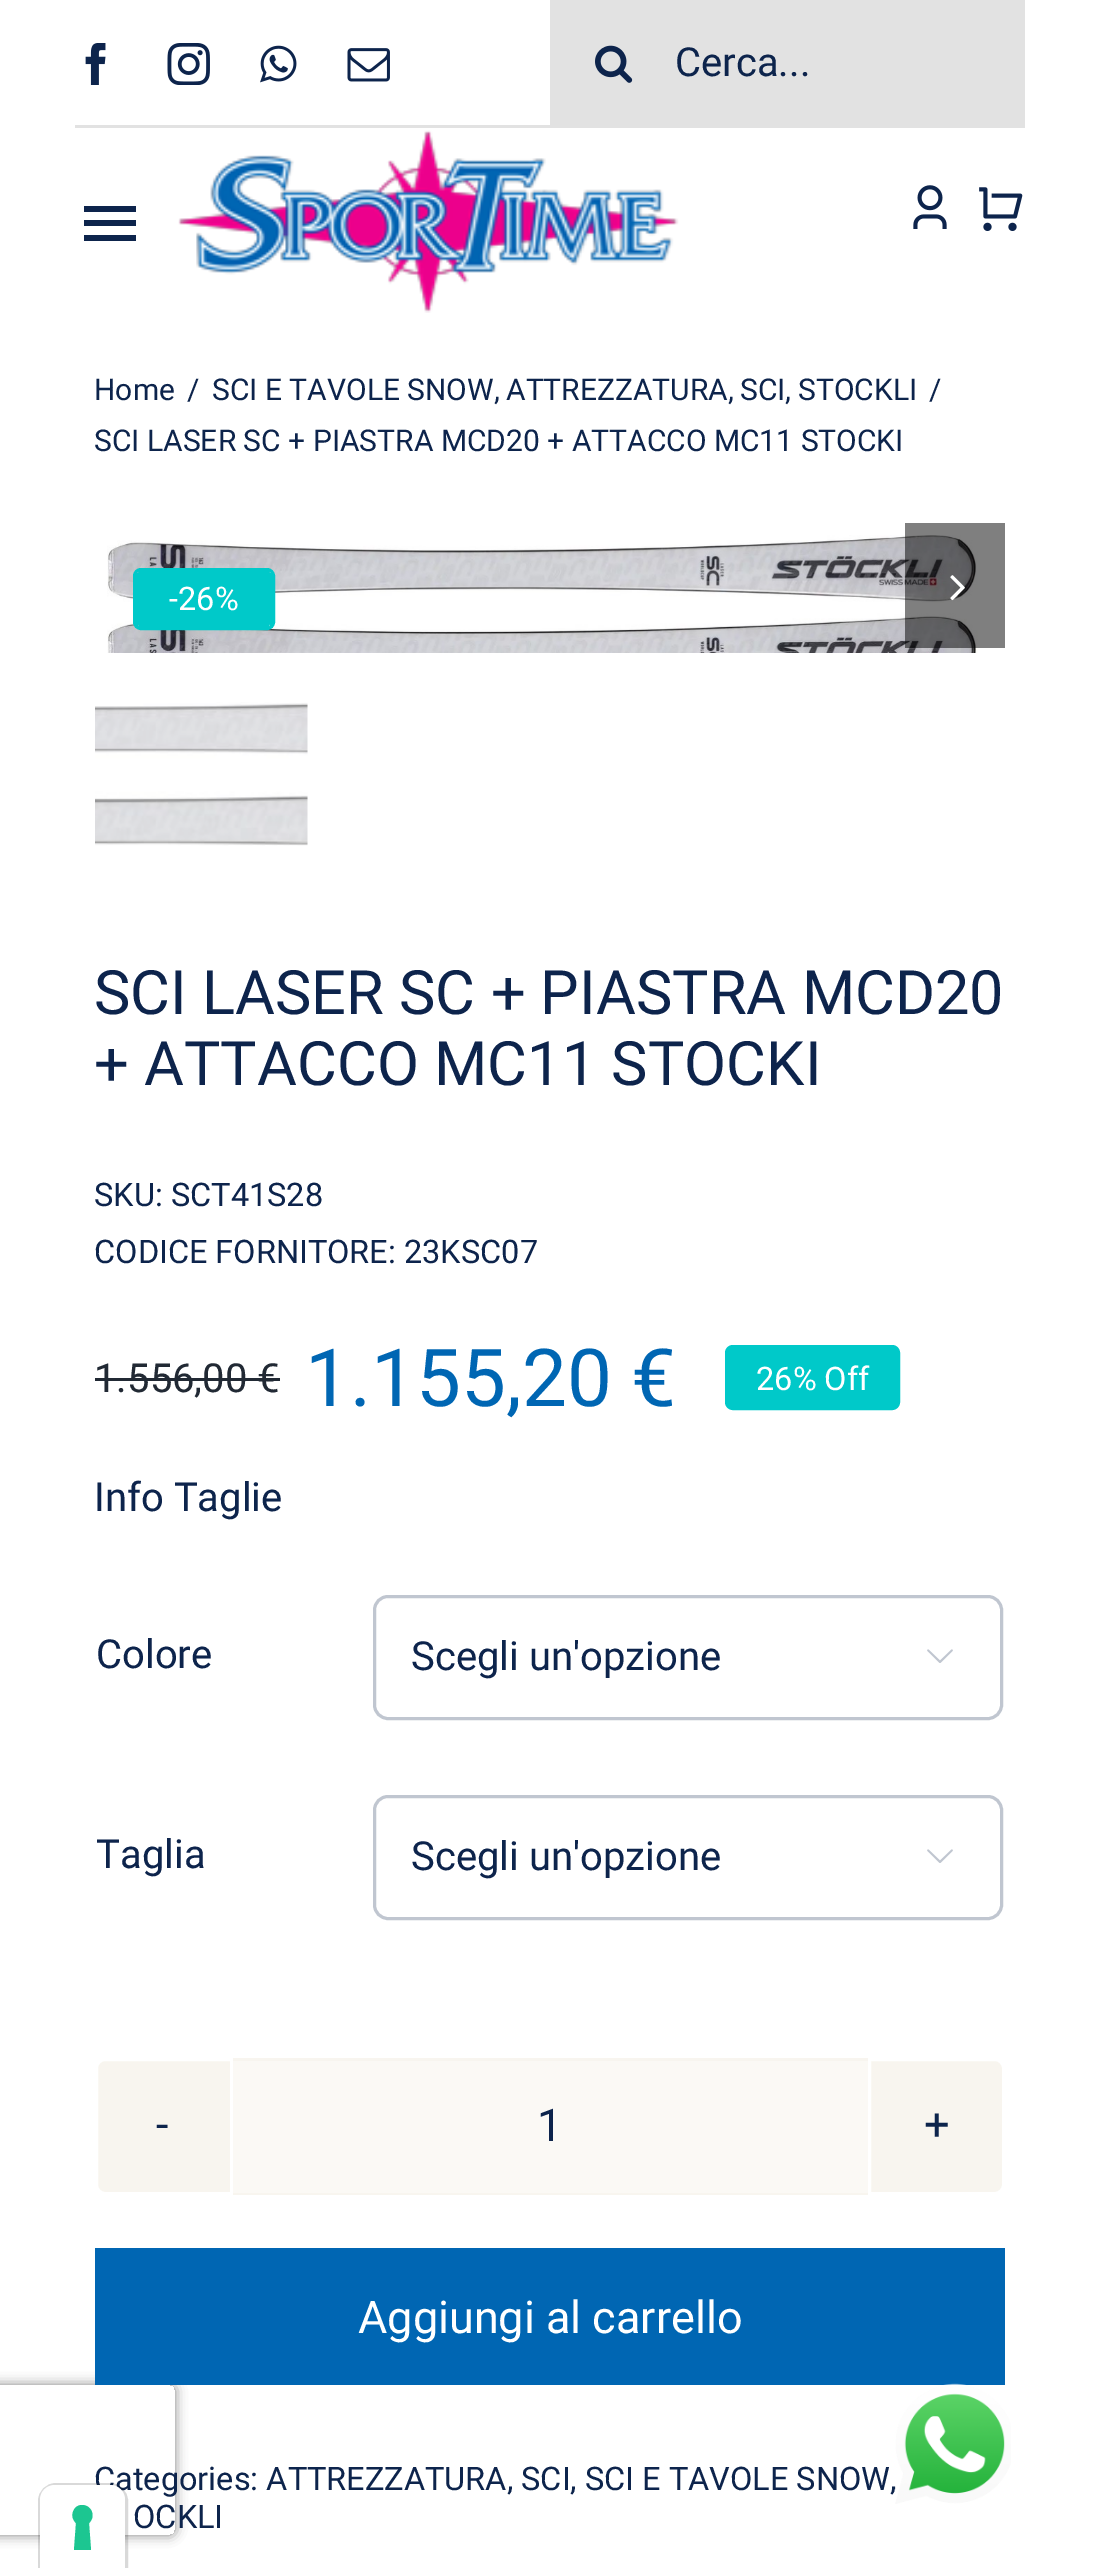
%!PS
<< /PageSize [1099 2568] /PageUsesTransparency true >> setpagedevice
/rgb { 3 { 255 div 3 1 roll } repeat setrgbcolor } def
/font { [ exch dup neg 0 0 3 -1 roll 0 0 ] selectfont } def
/alpha { dup .setfillconstantalpha .setstrokeconstantalpha } def
/roundrect { 5 dict begin { /r /h /w /y /x } { exch def } forall
  x r add y moveto x w add y 2 copy h add r arct x w add y h add x 1 index r arct
  x y h add x y r arct x y 2 copy exch w add exch r arct closepath end } def
/shadow { 12 dict begin { /a /b /q /h /w /y /x } { exch def } forall gsave /was 0 def
  9 -2 -9 { dup b mul 4 div /e exch def 1 sub .425 mul 2.718 exch exp 1 add a .99 .min exch div /now exch def
    1 1 now sub 1 was sub div sub alpha /was now def
    w h .min e 2 mul add 0 gt { x e sub y e sub w e 2 mul add h e 2 mul add
      q e add b .6 mul add w h .min 2 div e add .min 0 .max roundrect fill } if } for grestore end } def
/picture { 5 dict begin { /h /w /y /x /name } { exch def } forall
  gsave x y translate w h scale
  w h 8 [w 0 0 h 0 0] name (r) file false 3 colorimage grestore end } def
0 .pushpdf14devicefilter
0 2568 translate 1 -1 scale
4 setmiterlimit
255 255 255 rgb
0 0 1099 2568 rectfill
(img/1.rgb) 85 43 21 42 picture
(img/2.rgb) 167 43 43 42 picture
(img/3.rgb) 260 45 37 38 picture
(img/4.rgb) 347 48 43 34 picture
226 226 226 rgb
550 0 475 125 rectfill
(img/5.rgb) 595 45 38 38 picture
75 125 950 3 rectfill
13 36 76 rgb
84 206 moveto 136 206 lineto 136 212 lineto 84 212 lineto closepath 84 226 moveto 84 220 lineto 136 220 lineto 136 226 lineto closepath 84 241 moveto 84 235 lineto 136 235 lineto 136 241 lineto closepath fill
(img/6.rgb) 178 130 501 183 picture
(img/7.rgb) 913 185 34 44 picture
(img/8.rgb) 979 187 44 44 picture
(img/10.rgb) 107 535 871 118 picture
0.5 alpha
0 0 0 rgb
905 523 100 125 rectfill
1 alpha
(img/9.rgb) 950 575 15 26 picture
(img/11.rgb) 95 702 213 144 picture
0 201 201 rgb
140 570 moveto 268 570 lineto 269 570 270 572 270 575 curveto 270 622 lineto 270 625 269 628 268 628 curveto 140 628 lineto 139 628 138 625 138 622 curveto 138 575 lineto 138 572 139 570 140 570 curveto closepath fill
3 setlinewidth
134.5 569.5 139 59 6.5 roundrect stroke
[
  [270 573 3 55 0 201 201]
  [135 573 3 55 0 201 201]
  [95 1378 185 3 33 41 52]
] { aload pop rgb rectfill } forall
0 201 201 rgb
730 1350 165 55 3 roundrect gsave fill grestore
10 setlinewidth
stroke
192 198 208 rgb
3 setlinewidth
374.5 1596.5 627 122 13.5 roundrect stroke
(img/12.rgb) 927 1649 26 14 picture
374.5 1796.5 627 122 13.5 roundrect stroke
(img/12.rgb) 927 1849 26 14 picture
248 245 239 rgb
105 2059.5 moveto 231.5 2059.5 lineto 231.5 2193.5 lineto 105 2193.5 lineto 100.5 2193.5 96.5 2189.5 96.5 2185 curveto 96.5 2068 lineto 96.5 2063.5 100.5 2059.5 105 2059.5 curveto closepath gsave fill grestore
255 255 255 rgb
stroke
[
  [233 2061 635 132 251 249 245]
  [233 2058 635 3 248 245 239]
  [233 2193 635 2 248 245 239]
] { aload pop rgb rectfill } forall
869.5 2059.5 moveto 995 2059.5 lineto 999.5 2059.5 1003.5 2063.5 1003.5 2068 curveto 1003.5 2185 lineto 1003.5 2189.5 999.5 2193.5 995 2193.5 curveto 869.5 2193.5 lineto closepath gsave fill grestore
255 255 255 rgb
stroke
gsave
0 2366 moveto 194 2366 lineto 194 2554 lineto 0 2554 lineto closepath -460 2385 moveto 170 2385 lineto 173 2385 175 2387 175 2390 curveto 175 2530 lineto 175 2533 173 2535 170 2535 curveto -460 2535 lineto -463 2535 -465 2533 -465 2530 curveto -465 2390 lineto -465 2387 -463 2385 -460 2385 curveto closepath eoclip newpath
128 128 128 rgb
-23 2385 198 150 5 6 1 shadow
grestore
0 102 179 rgb
95 2248 910 137 rectfill
/Roboto-Regular 40 font
13 36 76 rgb
675 76 moveto (Cerca...) show
/Roboto-Regular 30 font
[
  [(Home) 94 400]
  [(/) 187 400]
  [(SCI E TAVOLE SNOW,) 212 400]
  [(ATTREZZATURA,) 506 400]
  [(SCI,) 740 400]
  [(STOCKLI) 798 400]
  [(/) 929 400]
  [(SCI LASER SC + PIASTRA MCD20 + ATTACCO MC11 STOCKI) 94 451]
] { aload pop moveto show } forall
/Roboto-Regular 32.5 font
255 255 255 rgb
169 610 moveto (-26%) show
/Roboto-Regular 61.25 font
13 36 76 rgb
94 1014 moveto (SCI LASER SC + PIASTRA MCD20) show
94 1085 moveto (+ ATTACCO MC11 STOCKI) show
/Roboto-Regular 32.5 font
94 1206 moveto (SKU: SCT41S28) show
94 1263 moveto (CODICE FORNITORE: 23KSC07) show
/Roboto-Regular 40 font
33 41 52 rgb
94 1392 moveto (1.556,00 €) show
/Roboto-Regular 80 font
0 102 179 rgb
305 1406 moveto (1.155,20 €) show
/Roboto-Regular 32.5 font
255 255 255 rgb
756 1390 moveto (26% Off) show
/Roboto-Regular 40 font
13 36 76 rgb
[
  [(Info Taglie) 94 1511]
  [(Colore) 96 1668]
  [(Scegli un'opzione) 411 1670]
  [(Taglia) 96 1868]
  [(Scegli un'opzione) 411 1870]
] { aload pop moveto show } forall
/Roboto-Regular 45 font
[
  [(-) 156 2140]
  [(1) 537 2141]
  [(+) 924 2140]
] { aload pop moveto show } forall
255 255 255 rgb
358 2333 moveto (Aggiungi al carrello) show
/Roboto-Regular 32.5 font
13 36 76 rgb
94 2490 moveto (Categories: ATTREZZATURA, SCI, SCI E TAVOLE SNOW,) show
133 2528 moveto (OCKLI) show
(img/13.rgb) 895 2383 116 121 picture
0.15 alpha
0 0 0 rgb
56 2484.5 moveto 110 2484.5 lineto 119 2484.5 126.5 2492 126.5 2501 curveto 126.5 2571.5 lineto 39.5 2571.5 lineto 39.5 2501 lineto 39.5 2492 47 2484.5 56 2484.5 curveto closepath stroke
1 alpha
255 255 255 rgb
55 2485 moveto 110 2485 lineto 118.5 2485 125 2491.5 125 2500 curveto 125 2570 lineto 40 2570 lineto 40 2500 lineto 40 2491.5 46.5 2485 55 2485 curveto closepath fill
28 198 145 rgb
82 2505 moveto 92 2505 96 2517 89 2523 curveto 91 2550 lineto 74 2550 lineto 76 2523 lineto 69 2517 73 2505 82 2505 curveto closepath eofill
.poppdf14devicefilter showpage
